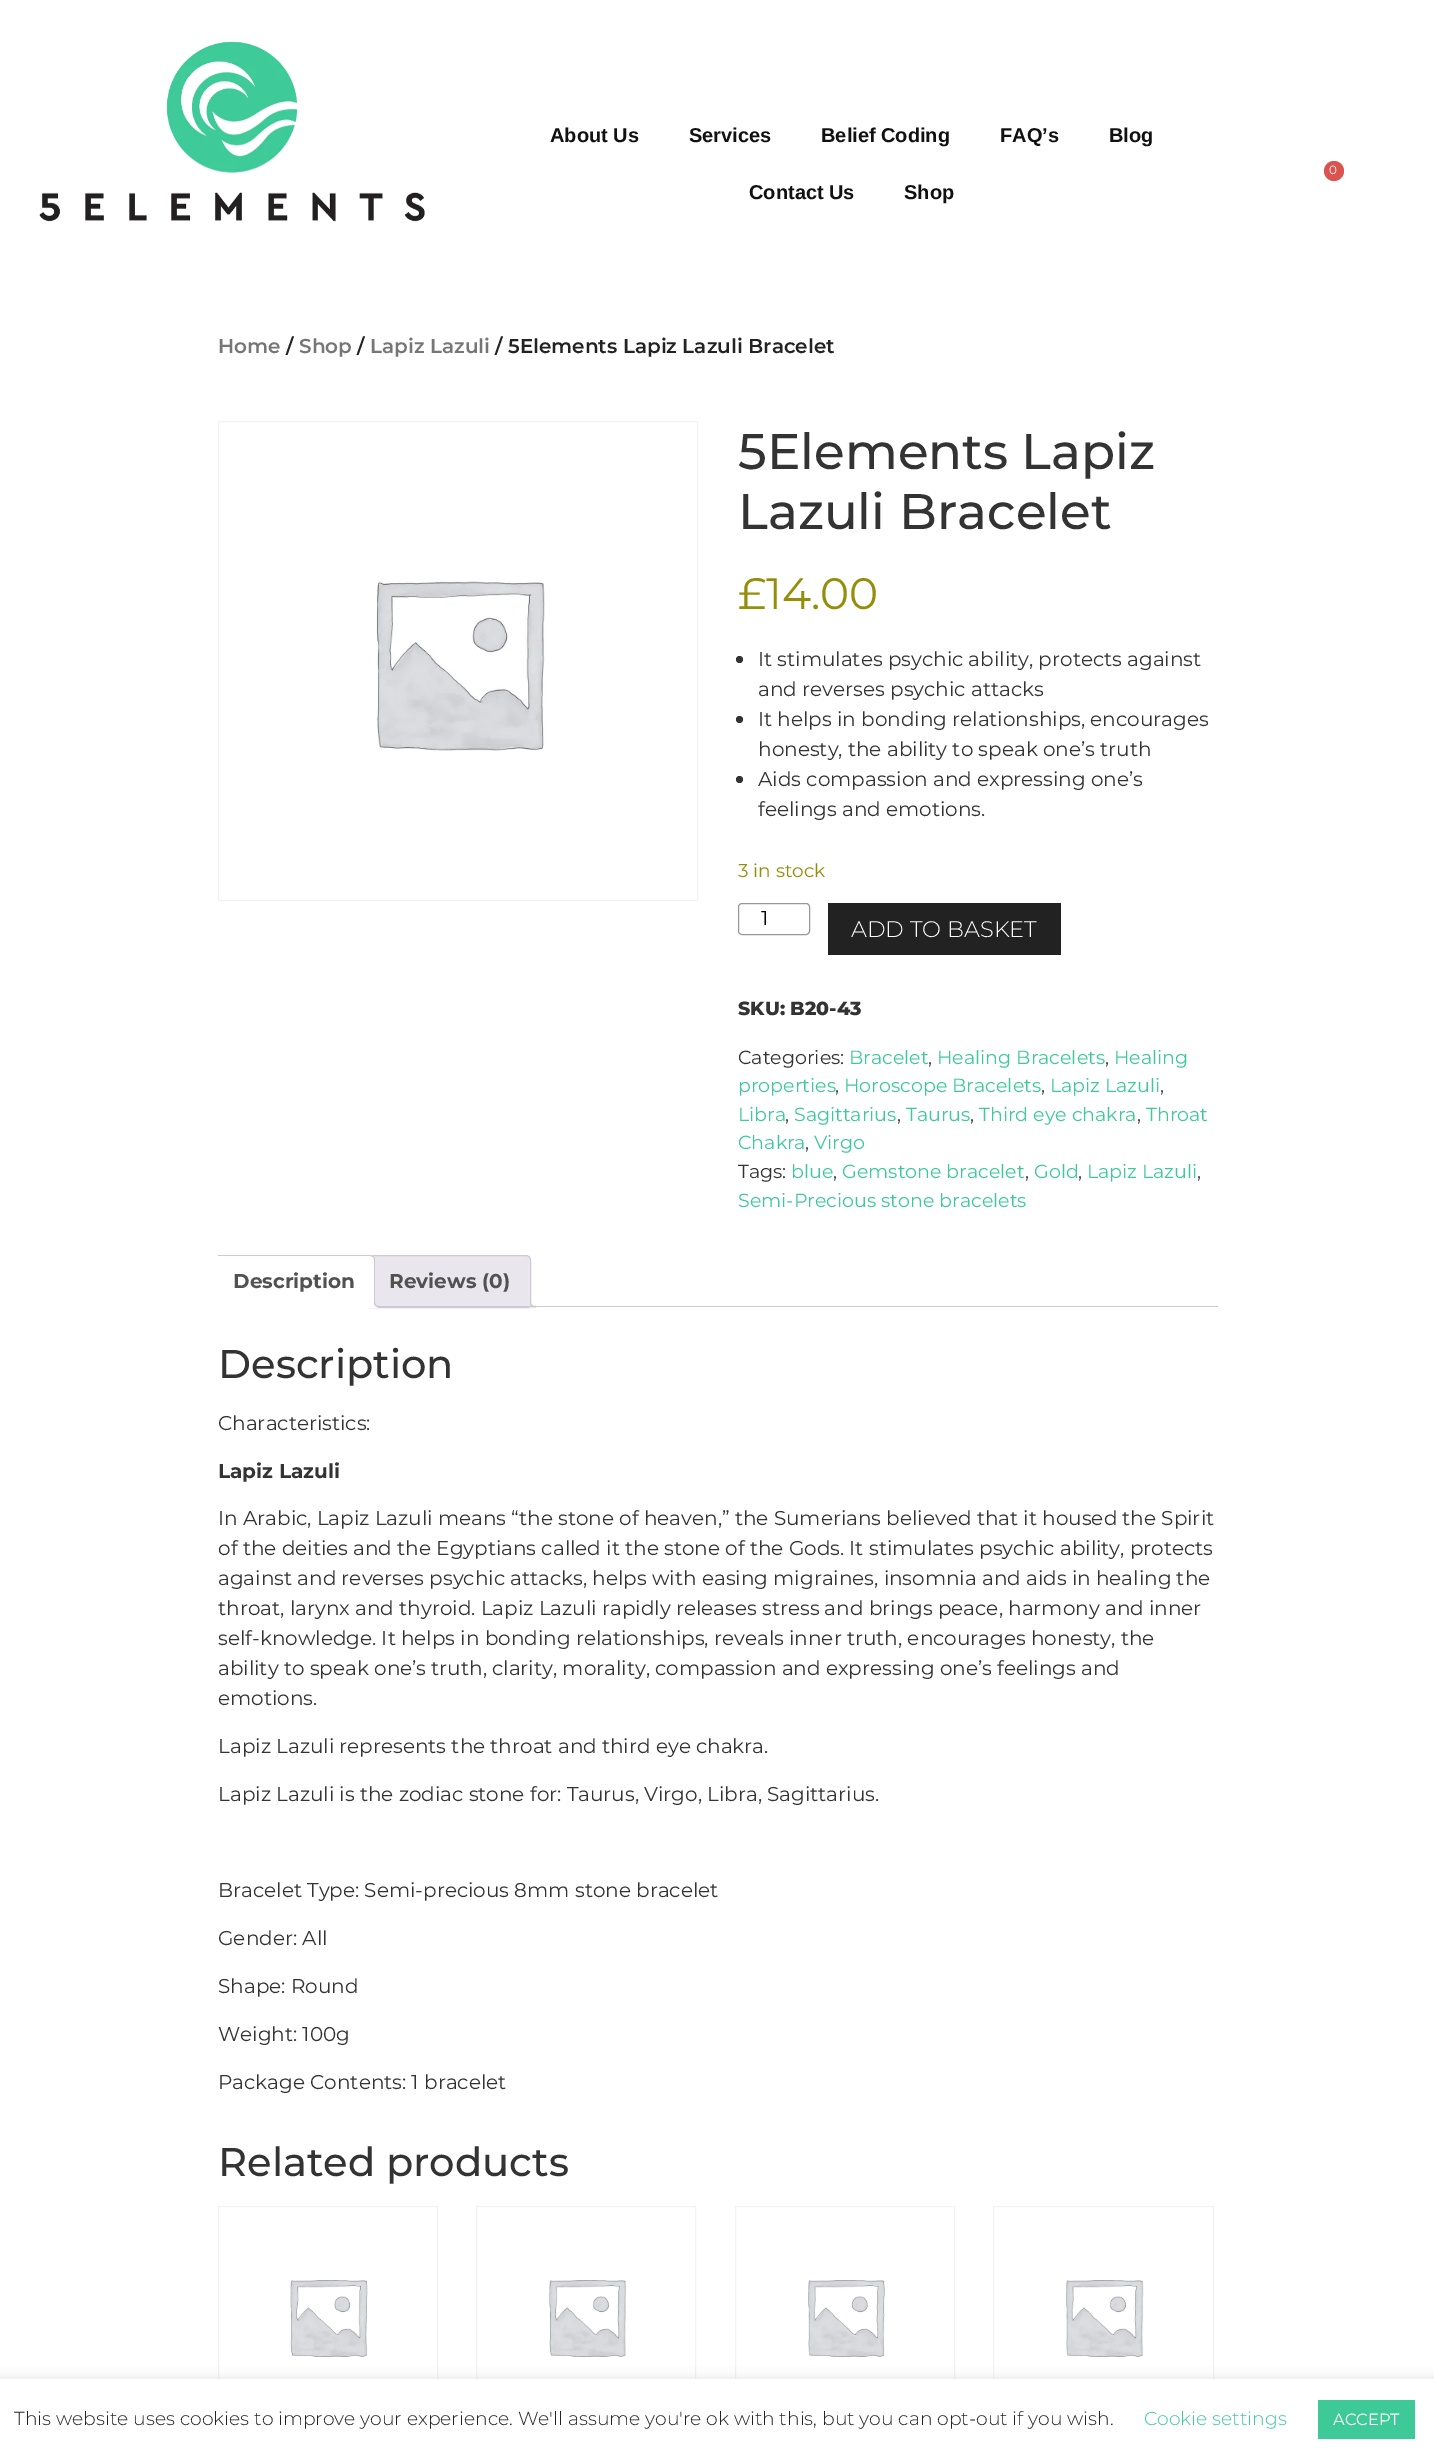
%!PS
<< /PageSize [1434 2460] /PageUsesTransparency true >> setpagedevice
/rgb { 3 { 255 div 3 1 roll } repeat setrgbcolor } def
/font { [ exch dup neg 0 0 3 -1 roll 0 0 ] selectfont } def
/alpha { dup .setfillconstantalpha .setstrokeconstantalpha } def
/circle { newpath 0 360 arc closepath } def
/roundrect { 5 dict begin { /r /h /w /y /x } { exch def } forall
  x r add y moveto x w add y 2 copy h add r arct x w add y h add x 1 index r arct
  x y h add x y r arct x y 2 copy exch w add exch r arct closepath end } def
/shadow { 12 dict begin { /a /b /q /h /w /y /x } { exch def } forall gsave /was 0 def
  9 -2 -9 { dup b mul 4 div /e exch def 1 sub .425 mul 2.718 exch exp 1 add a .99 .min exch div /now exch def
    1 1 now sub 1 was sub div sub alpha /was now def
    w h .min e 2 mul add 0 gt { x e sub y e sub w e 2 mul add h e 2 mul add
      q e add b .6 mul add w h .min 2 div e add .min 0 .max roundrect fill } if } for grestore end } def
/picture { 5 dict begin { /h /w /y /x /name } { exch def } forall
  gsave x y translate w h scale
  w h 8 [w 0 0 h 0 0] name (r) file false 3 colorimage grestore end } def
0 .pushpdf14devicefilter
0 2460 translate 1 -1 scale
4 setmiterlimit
255 255 255 rgb
0 0 1434 2460 rectfill
(img/1.rgb) 39 41 386 181 picture
217 83 79 rgb
1334 171 10 circle fill
242 242 242 rgb
218.5 421.5 479 479 rectstroke
(img/2.rgb) 376 581 171 170 picture
51 51 51 rgb
739.5 659.5 3.5 circle fill
739.5 719.5 3.5 circle fill
739.5 779.5 3.5 circle fill
153 153 153 rgb
738.5 903.5 71 31 3.5 roundrect stroke
34 34 34 rgb
828 903 233 52 rectfill
233 230 237 rgb
374 1255.5 moveto 526 1255.5 lineto 528.5 1255.5 530.5 1257.5 530.5 1260 curveto 530.5 1307.5 lineto 369.5 1307.5 lineto 369.5 1260 lineto 369.5 1257.5 371.5 1255.5 374 1255.5 curveto closepath gsave fill grestore
207 200 216 rgb
stroke
255 255 255 rgb
218 1255 moveto 370 1255 lineto 373 1255 375 1257 375 1260 curveto 375 1308 lineto 218 1308 lineto closepath fill
gsave
218 1255 1000 53 rectclip
207 200 216 rgb
216 1255 moveto 215 1255 213 1255 213 1256 curveto 213 1257 lineto 216 1256 lineto 370 1256 lineto 373 1257 lineto 374 1256 lineto 373 1256 372 1255 370 1255 curveto closepath fill
grestore
207 200 216 rgb
375 1308 moveto 375 1260 lineto 375 1258 374 1257 374 1256 curveto 373 1257 lineto 374 1258 374 1259 374 1260 curveto 374 1306 lineto closepath fill
gsave
218 1255 1000 53 rectclip
255 255 255 rgb
375 1308 moveto 374 1306 lineto 213 1306 lineto 211 1308 lineto closepath fill
233 230 237 rgb
528 1304 moveto 528 1308 530 1310 534 1310 curveto 534 1307.5 lineto 532 1307 531 1305.5 530 1304 curveto closepath fill
grestore
530 1301 moveto 536 1301 lineto 536 1307.5 lineto 533 1307.5 530 1306 530 1302.5 curveto closepath 531 1301 moveto 536 1301 lineto 536 1306 lineto 534 1306 531 1305.5 531 1302.5 curveto closepath eofill
375 1306 843 1 rectfill
gsave
218 1255 1000 53 rectclip
255 255 255 rgb
371 1304 moveto 371 1309 373.5 1310 378 1310 curveto 378 1307.5 lineto 376 1307 374.5 1306 374 1304 curveto closepath fill
grestore
374 1301 moveto 380 1301 lineto 380 1307.5 lineto 377 1307.5 374 1306 374 1302.5 curveto closepath 375 1301 moveto 380 1301 lineto 380 1306 lineto 377.5 1306 375 1305.5 375 1302.5 curveto closepath eofill
242 242 242 rgb
218.5 2206.5 219 219 rectstroke
(img/3.rgb) 290 2280 78 77 picture
476.5 2206.5 219 219 rectstroke
(img/4.rgb) 549 2280 77 77 picture
735.5 2206.5 219 219 rectstroke
(img/5.rgb) 808 2280 77 77 picture
993.5 2206.5 220 219 rectstroke
(img/6.rgb) 1066 2280 78 77 picture
172 171 171 rgb
0 2378 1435 81 0 6 0.3 shadow
255 255 255 rgb
0 2379 1434 81 rectfill
61 201 152 rgb
1318 2400 97 39 rectfill
/LiberationSans-Bold 20 font
17 17 17 rgb
[
  [(About Us) 550 142]
  [(Services) 689 142]
  [(Belief Coding) 821 142]
  [(FAQ’s) 1000 142]
  [(Blog) 1109 142]
  [(Contact Us) 749 199]
  [(Shop) 904 199]
] { aload pop moveto show } forall
/Montserrat-Regular 12 font
255 255 255 rgb
1329 174 moveto (0) show
/Montserrat-SemiBold 20 font
118 118 118 rgb
218 353 moveto (Home) show
34 34 34 rgb
286 353 moveto (/) show
118 118 118 rgb
299 353 moveto (Shop) show
34 34 34 rgb
357 353 moveto (/) show
118 118 118 rgb
370 353 moveto (Lapiz Lazuli) show
34 34 34 rgb
495 353 moveto (/ 5Elements Lapiz Lazuli Bracelet) show
/Montserrat-Medium 50 font
51 51 51 rgb
738 469 moveto (5Elements Lapiz) show
738 529 moveto (Lazuli Bracelet) show
/Montserrat-Regular 44 font
149 142 9 rgb
738 609 moveto (£14.00) show
/Montserrat-Regular 20 font
51 51 51 rgb
[
  [(It stimulates psychic ability, protects against) 758 666]
  [(and reverses psychic attacks) 758 696]
  [(It helps in bonding relationships, encourages) 758 726]
  [(honesty, the ability to speak one’s truth) 758 756]
  [(Aids compassion and expressing one’s) 758 786]
  [(feelings and emotions.) 758 816]
] { aload pop moveto show } forall
/Montserrat-Regular 18.5 font
149 142 9 rgb
738 877 moveto (3 in stock) show
/Montserrat-Regular 20 font
0 0 0 rgb
761 925 moveto (1) show
/Montserrat-Light 22.5 font
255 255 255 rgb
851 937 moveto (ADD TO BASKET) show
/Montserrat-ExtraBold 19 font
51 51 51 rgb
738 1015 moveto (SKU: B20-43) show
/Montserrat-Regular 19 font
738 1064 moveto (Categories:) show
61 201 152 rgb
849 1064 moveto (Bracelet) show
51 51 51 rgb
928 1064 moveto (,) show
61 201 152 rgb
937 1064 moveto (Healing Bracelets) show
51 51 51 rgb
1105 1064 moveto (,) show
61 201 152 rgb
1114 1064 moveto (Healing) show
738 1092 moveto (properties) show
51 51 51 rgb
835 1092 moveto (,) show
61 201 152 rgb
844 1092 moveto (Horoscope Bracelets) show
51 51 51 rgb
1041 1092 moveto (,) show
61 201 152 rgb
1050 1092 moveto (Lapiz Lazuli) show
51 51 51 rgb
1160 1092 moveto (,) show
61 201 152 rgb
738 1121 moveto (Libra) show
51 51 51 rgb
785 1121 moveto (,) show
61 201 152 rgb
794 1121 moveto (Sagittarius) show
51 51 51 rgb
897 1121 moveto (,) show
61 201 152 rgb
906 1121 moveto (Taurus) show
51 51 51 rgb
970 1121 moveto (,) show
61 201 152 rgb
979 1121 moveto (Third eye chakra) show
51 51 51 rgb
1137 1121 moveto (,) show
61 201 152 rgb
1146 1121 moveto (Throat) show
738 1149 moveto (Chakra) show
51 51 51 rgb
805 1149 moveto (,) show
61 201 152 rgb
814 1149 moveto (Virgo) show
51 51 51 rgb
738 1178 moveto (Tags:) show
61 201 152 rgb
791 1178 moveto (blue) show
51 51 51 rgb
833 1178 moveto (,) show
61 201 152 rgb
842 1178 moveto (Gemstone bracelet) show
51 51 51 rgb
1025 1178 moveto (,) show
61 201 152 rgb
1034 1178 moveto (Gold) show
51 51 51 rgb
1078 1178 moveto (,) show
61 201 152 rgb
1087 1178 moveto (Lapiz Lazuli) show
51 51 51 rgb
1197 1178 moveto (,) show
61 201 152 rgb
738 1207 moveto (Semi-Precious stone bracelets) show
/Montserrat-Bold 20 font
81 81 81 rgb
233 1288 moveto (Description) show
389 1288 moveto (Reviews \(0\)) show
/Montserrat-Medium 40 font
51 51 51 rgb
218 1378 moveto (Description) show
/Montserrat-Regular 20 font
218 1430 moveto (Characteristics:) show
/Montserrat-Bold 20 font
218 1478 moveto (Lapiz Lazuli) show
/Montserrat-Regular 20 font
[
  [(In Arabic, Lapiz Lazuli means “the stone of heaven,” the Sumerians believed that it housed the Spirit) 218 1525]
  [(of the deities and the Egyptians called it the stone of the Gods. It stimulates psychic ability, protects) 218 1555]
  [(against and reverses psychic attacks, helps with easing migraines, insomnia and aids in healing the) 218 1585]
  [(throat, larynx and thyroid. Lapiz Lazuli rapidly releases stress and brings peace, harmony and inner) 218 1615]
  [(self-knowledge. It helps in bonding relationships, reveals inner truth, encourages honesty, the) 218 1645]
  [(ability to speak one’s truth, clarity, morality, compassion and expressing one’s feelings and) 218 1675]
  [(emotions.) 218 1705]
  [(Lapiz Lazuli represents the throat and third eye chakra.) 218 1753]
  [(Lapiz Lazuli is the zodiac stone for: Taurus, Virgo, Libra, Sagittarius.) 218 1801]
  [(Bracelet Type: Semi-precious 8mm stone bracelet) 218 1897]
  [(Gender: All) 218 1945]
  [(Shape: Round) 218 1993]
  [(Weight: 100g) 218 2041]
  [(Package Contents: 1 bracelet) 218 2089]
] { aload pop moveto show } forall
/Montserrat-Medium 40 font
218 2176 moveto (Related products) show
/Montserrat-Light 18.75 font
34 34 34 rgb
14 2425 moveto (This website uses cookies to improve your experience. We'll assume you're ok with this, but you can opt-out if you wish.) show
61 201 152 rgb
1144 2425 moveto (Cookie settings) show
/Montserrat-Regular 16.25 font
255 255 255 rgb
1333 2425 moveto (ACCEPT) show
.poppdf14devicefilter showpage
